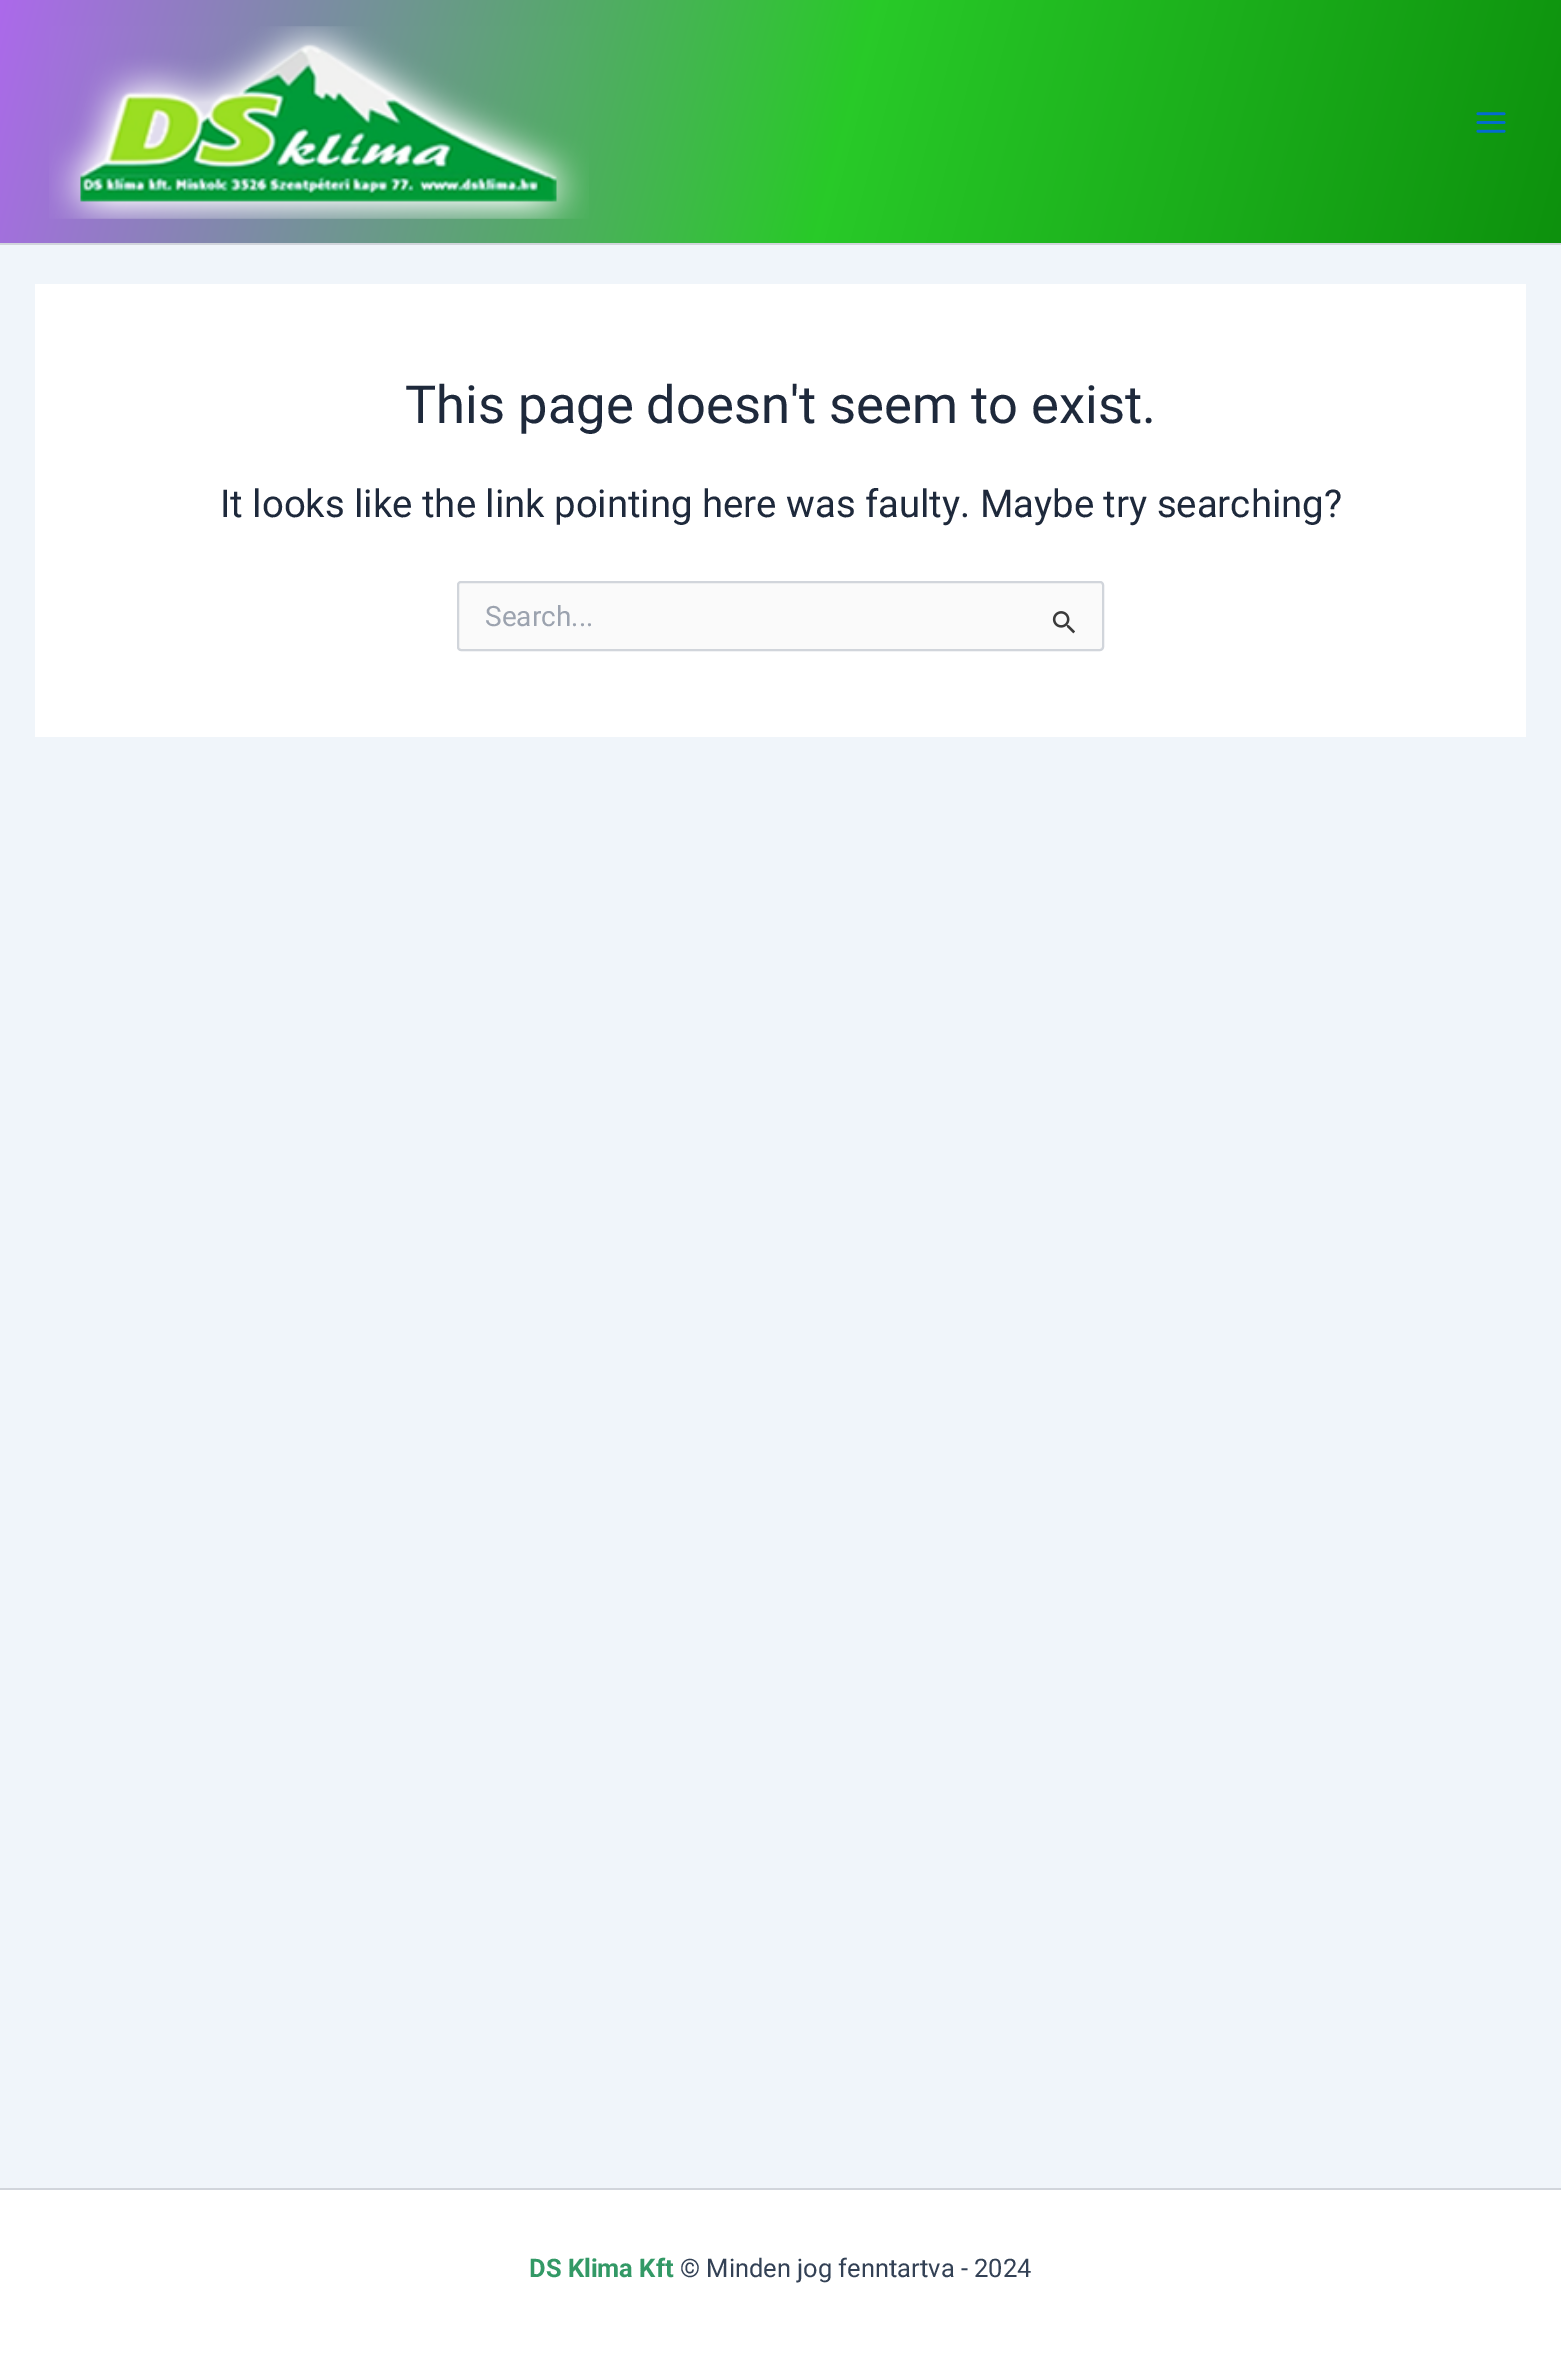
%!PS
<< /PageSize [1561 2363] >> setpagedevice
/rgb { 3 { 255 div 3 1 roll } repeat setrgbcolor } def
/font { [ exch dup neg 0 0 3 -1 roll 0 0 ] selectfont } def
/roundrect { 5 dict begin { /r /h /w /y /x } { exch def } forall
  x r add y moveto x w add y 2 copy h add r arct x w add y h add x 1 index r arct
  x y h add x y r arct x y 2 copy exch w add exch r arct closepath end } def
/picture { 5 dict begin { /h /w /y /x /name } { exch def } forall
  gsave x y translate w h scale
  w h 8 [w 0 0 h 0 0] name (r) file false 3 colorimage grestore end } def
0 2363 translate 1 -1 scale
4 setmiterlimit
240 245 250 rgb
0 0 1561 2363 rectfill
gsave 0 0 moveto 1561 0 lineto 1561 243 lineto 0 243 lineto closepath clip newpath
<< /ShadingType 2 /ColorSpace /DeviceRGB /Coords [1539 325 22 -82] /Extend [true true] /Function << /FunctionType 3 /Domain [0 1] /Functions [<< /FunctionType 2 /Domain [0 1] /C0 [0.051 0.569 0.051] /C1 [0.157 0.792 0.157] /N 1 >> << /FunctionType 2 /Domain [0 1] /C0 [0.157 0.792 0.157] /C1 [0.675 0.412 0.922] /N 1 >>] /Bounds [0.46] /Encode [0 1 0 1] >> >> shfill grestore
209 213 219 rgb
0 243 1561 2 rectfill
(img/1.rgb) 49 26 540 193 picture
(img/2.rgb) 1476 112 30 21 picture
255 255 255 rgb
35 284 1491 453 rectfill
250 250 250 rgb
458 582 645 68 3 roundrect gsave fill grestore
209 213 219 rgb
2 setlinewidth
stroke
(img/3.rgb) 1052 611 23 23 picture
255 255 255 rgb
0 2190 1561 173 rectfill
209 213 219 rgb
0 2188 1561 2 rectfill
/Roboto-Regular 52.5 font
30 41 59 rgb
405 423 moveto (This page doesn't seem to exist.) show
/Roboto-Regular 38.3 font
220 517 moveto (It looks like the link pointing here was faulty. Maybe try searching?) show
/Roboto-Regular 28 font
156 163 175 rgb
485 626 moveto (Search...) show
/Roboto-Bold 25.5 font
51 153 102 rgb
529 2277 moveto (DS Klima Kft) show
/Roboto-Regular 25.5 font
51 65 85 rgb
680 2277 moveto (© Minden jog fenntartva - 2024) show
showpage
